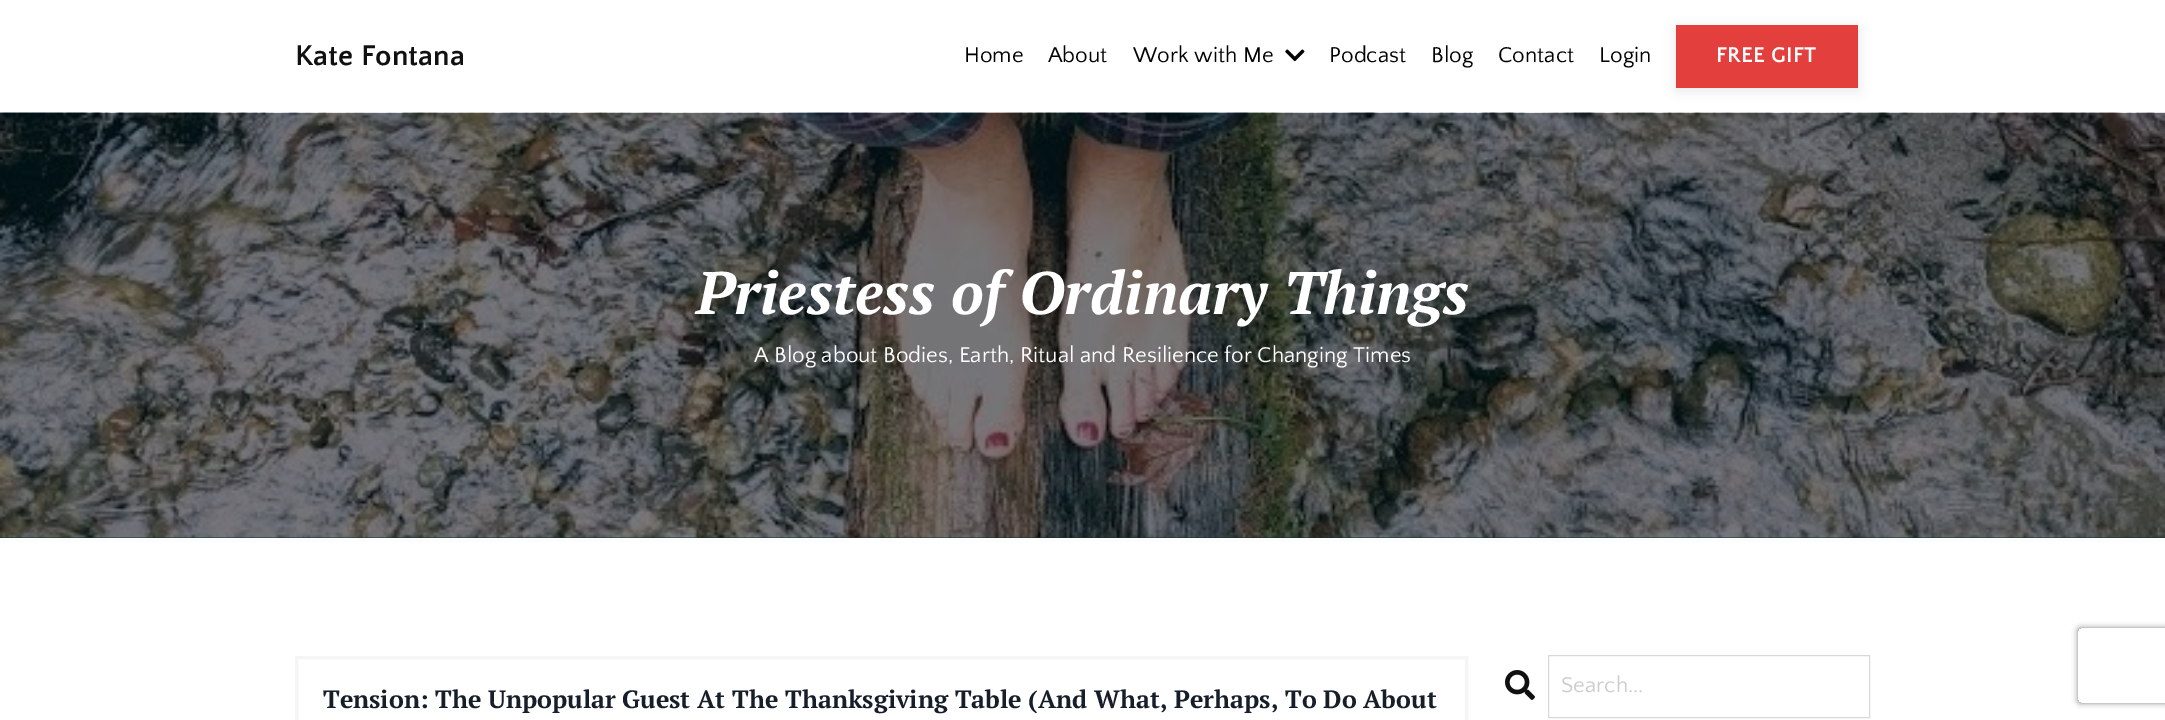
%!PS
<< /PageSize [2165 720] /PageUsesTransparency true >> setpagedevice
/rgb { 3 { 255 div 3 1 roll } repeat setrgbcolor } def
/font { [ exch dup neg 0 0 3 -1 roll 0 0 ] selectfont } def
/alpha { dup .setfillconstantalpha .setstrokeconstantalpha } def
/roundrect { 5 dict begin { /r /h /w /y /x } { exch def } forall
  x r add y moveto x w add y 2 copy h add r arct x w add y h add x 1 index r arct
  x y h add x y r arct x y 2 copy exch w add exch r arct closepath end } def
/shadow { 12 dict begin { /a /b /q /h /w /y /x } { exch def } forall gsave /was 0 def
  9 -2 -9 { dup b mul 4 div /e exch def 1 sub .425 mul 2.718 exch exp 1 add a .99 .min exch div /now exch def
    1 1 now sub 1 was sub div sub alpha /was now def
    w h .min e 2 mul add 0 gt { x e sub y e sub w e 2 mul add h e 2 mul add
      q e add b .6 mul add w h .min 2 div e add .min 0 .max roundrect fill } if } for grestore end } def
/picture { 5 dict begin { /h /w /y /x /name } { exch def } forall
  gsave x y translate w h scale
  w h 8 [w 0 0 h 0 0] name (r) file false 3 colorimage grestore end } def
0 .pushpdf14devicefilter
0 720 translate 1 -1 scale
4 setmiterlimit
9 56 45 rgb
0 0 2165 720 rectfill
255 255 255 rgb
0 0 2165 113 rectfill
(img/1.rgb) 1285 49 20 13 picture
0 0 0 rgb
1676 28 182 62 0 6 0.1 shadow
227 63 61 rgb
1676 25 182 63 rectfill
(img/2.rgb) 0 112 2165 426 picture
255 255 255 rgb
0 538 2165 182 rectfill
(img/3.rgb) 1505 670 30 30 picture
217 217 217 rgb
1548.5 655.5 321 62 rectstroke
245 245 245 rgb
3 setlinewidth
296.5 657.5 1170 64 rectstroke
gsave
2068 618 moveto 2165 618 lineto 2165 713 lineto 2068 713 lineto closepath 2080.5 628 moveto 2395.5 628 lineto 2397 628 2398 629 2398 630.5 curveto 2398 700.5 lineto 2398 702 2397 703 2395.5 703 curveto 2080.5 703 lineto 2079 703 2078 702 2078 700.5 curveto 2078 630.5 lineto 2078 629 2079 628 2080.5 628 curveto closepath eoclip newpath
128 128 128 rgb
2078 628 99 75 2.5 3 1 shadow
grestore
/QuattrocentoSans-Bold 30 font
16 16 16 rgb
295 65 moveto (Kate Fontana) show
/QuattrocentoSans-Regular 22.5 font
0 0 0 rgb
[
  [(Home) 964 62]
  [(About) 1048 62]
  [(Work with Me) 1133 62]
  [(Podcast) 1329 62]
  [(Blog) 1431 62]
  [(Contact) 1498 62]
  [(Login) 1599 62]
] { aload pop moveto show } forall
/QuattrocentoSans-Bold 22.5 font
255 255 255 rgb
1716 62 moveto 0.25 0 (FREE GIFT) ashow
/PTSerif-BoldItalic 60 font
696 314 moveto (Priestess of Ordinary Things) show
/QuattrocentoSans-Regular 22.5 font
754 362 moveto (A Blog about Bodies, Earth, Ritual and Resilience for Changing Times) show
204 204 204 rgb
1561 692 moveto (Search...) show
/PTSerif-Bold 25 font
22 30 42 rgb
323 708 moveto (Tension: The Unpopular Guest At The Thanksgiving Table \(And What, Perhaps, To Do About) show
.poppdf14devicefilter showpage
